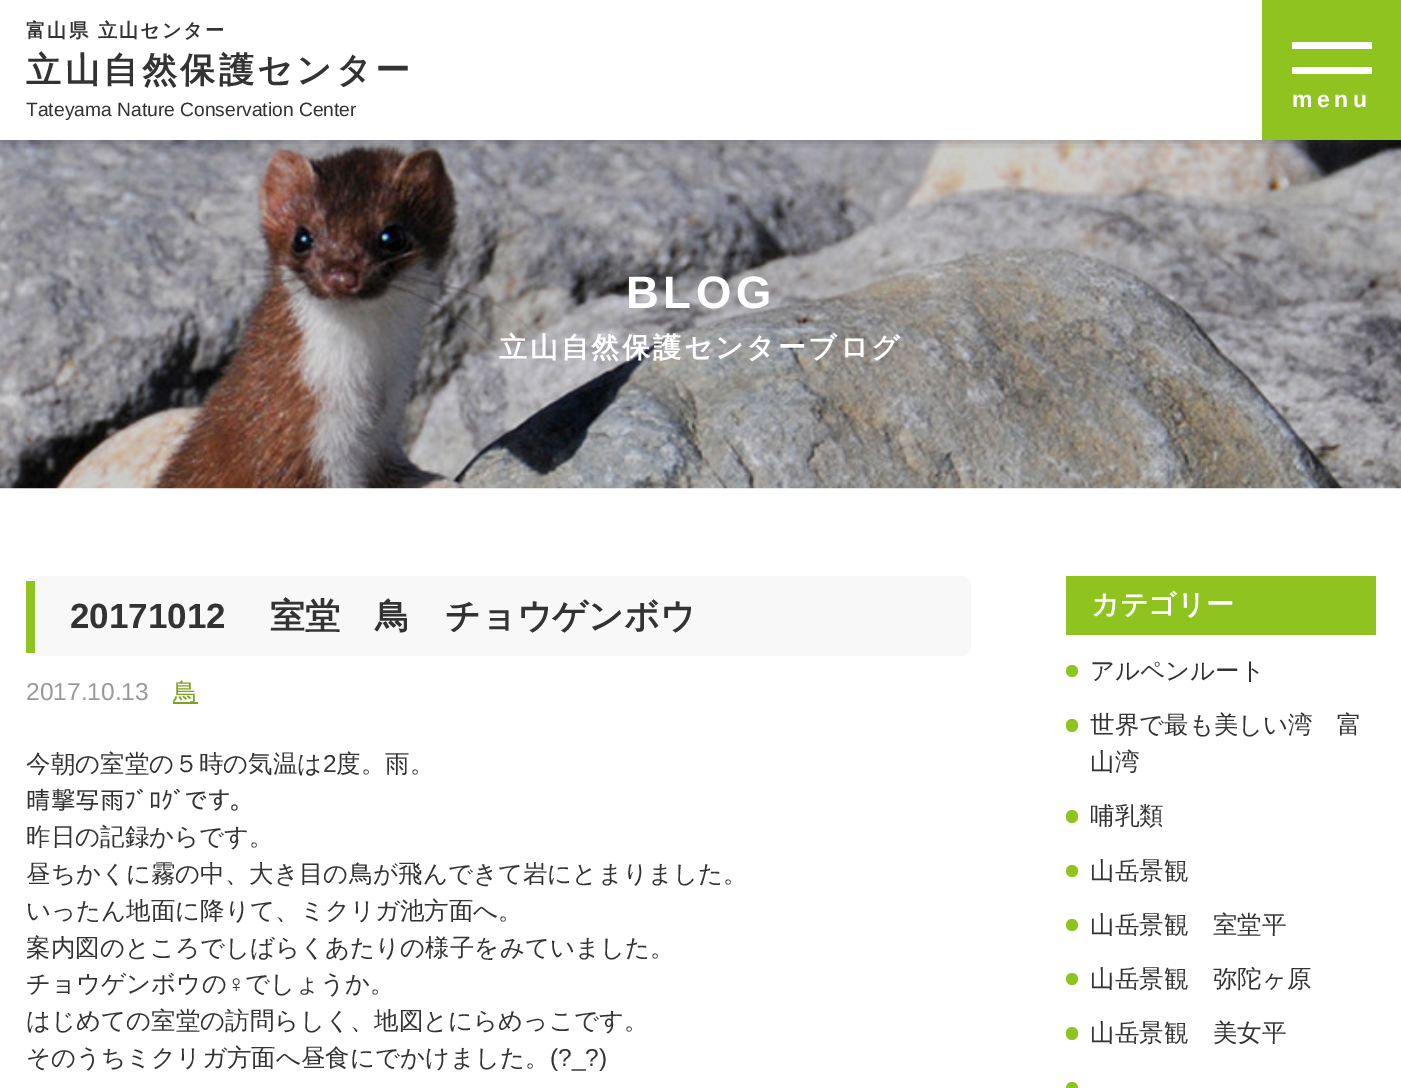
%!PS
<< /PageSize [1401 1088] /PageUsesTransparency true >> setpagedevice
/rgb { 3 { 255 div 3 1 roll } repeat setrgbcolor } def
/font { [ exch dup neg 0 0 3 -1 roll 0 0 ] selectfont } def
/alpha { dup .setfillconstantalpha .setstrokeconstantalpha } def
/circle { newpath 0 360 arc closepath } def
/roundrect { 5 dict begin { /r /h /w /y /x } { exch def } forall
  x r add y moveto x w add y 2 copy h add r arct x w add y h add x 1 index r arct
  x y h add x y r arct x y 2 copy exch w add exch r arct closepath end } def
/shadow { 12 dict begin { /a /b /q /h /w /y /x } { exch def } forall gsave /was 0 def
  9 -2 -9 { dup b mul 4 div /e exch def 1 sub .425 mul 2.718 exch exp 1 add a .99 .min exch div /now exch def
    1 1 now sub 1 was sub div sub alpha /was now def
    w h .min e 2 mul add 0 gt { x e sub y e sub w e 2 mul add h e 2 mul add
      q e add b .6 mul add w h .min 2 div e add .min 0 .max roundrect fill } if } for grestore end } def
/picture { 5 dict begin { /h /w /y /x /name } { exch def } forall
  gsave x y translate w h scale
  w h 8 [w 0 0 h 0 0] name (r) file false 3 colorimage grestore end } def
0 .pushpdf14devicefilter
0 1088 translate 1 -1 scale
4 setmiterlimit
255 255 255 rgb
0 0 1401 1088 rectfill
(img/1.rgb) 0 140 1401 349 picture
gsave
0 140 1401 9 rectclip
51 51 51 rgb
2 -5 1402 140 0 7 1 shadow
grestore
[
  [1262 0 139 140 143 195 31]
  [1292 42 80 7 255 255 255]
  [1292 67 80 7 255 255 255]
] { aload pop rgb rectfill } forall
248 248 248 rgb
26 576 945 80 9 roundrect fill
[
  [26 581 9 72 143 195 31]
  [173 702 25 2 120 165 25]
  [1066 576 310 59 143 195 31]
] { aload pop rgb rectfill } forall
1072 671 6 circle fill
1066 719 12 13 6 roundrect fill
1066 810 12 13 6 roundrect fill
1072 871 6 circle fill
1072 925 6 circle fill
1072 979 6 circle fill
1066 1027 12 13 6 roundrect fill
1072 1088 6 circle fill
/WenQuanYiZenHei-Bold 19.25 font
51 51 51 rgb
26 37 moveto 2 0 (富山県 立山センター) ashow
/WenQuanYiZenHei-Bold 35 font
26 82 moveto 3.5 0 (立山自然保護センター) ashow
/LiberationSans-Regular 19.25 font
26 116 moveto (Tateyama Nature Conservation Center) show
/LiberationSans-Bold 23 font
255 255 255 rgb
1292 107 moveto 4.5 0 (menu) ashow
/LiberationSans-Bold 45.5 font
626 308 moveto 4.5 0 (BLOG) ashow
/WenQuanYiZenHei-Bold 28 font
499 357 moveto 2.75 0 (立山自然保護センターブログ) ashow
/LiberationSans-Bold 35 font
51 51 51 rgb
70 628 moveto (20171012) show
/WenQuanYiZenHei-Bold 35 font
270 628 moveto (室堂　鳥　チョウゲンボウ) show
/LiberationSans-Regular 24.5 font
153 153 153 rgb
26 700 moveto (2017.10.13) show
/WenQuanYiZenHei-Medium 24.5 font
120 165 25 rgb
173 700 moveto (鳥) show
51 51 51 rgb
26 772 moveto (今朝の室堂の５時の気温は) show
/LiberationSans-Regular 24.5 font
323 772 moveto (2) show
/WenQuanYiZenHei-Medium 24.5 font
336 772 moveto (度。雨。) show
/IPAPGothic-Regular 24.5 font
26 809 moveto (晴撃写雨ﾌﾞﾛｸﾞです。) show
/WenQuanYiZenHei-Medium 24.5 font
[
  [(昨日の記録からです。) 26 845]
  [(昼ちかくに霧の中、大き目の鳥が飛んできて岩にとまりました。) 26 882]
  [(いったん地面に降りて、ミクリガ池方面へ。) 26 919]
  [(案内図のところでしばらくあたりの様子をみていました。) 26 956]
  [(チョウゲンボウの) 26 992]
] { aload pop moveto show } forall
/LiberationSans-Regular 24.5 font
227 992 moveto (♀) show
/WenQuanYiZenHei-Medium 24.5 font
[
  [(でしょうか。) 245 992]
  [(はじめての室堂の訪問らしく、地図とにらめっこです。) 26 1029]
  [(そのうちミクリガ方面へ昼食にでかけました。) 26 1066]
] { aload pop moveto show } forall
/LiberationSans-Regular 24.5 font
550 1066 moveto (\(?_?\)) show
/WenQuanYiZenHei-Bold 28 font
255 255 255 rgb
1091 614 moveto (カテゴリー) show
/WenQuanYiZenHei-Medium 24.5 font
51 51 51 rgb
[
  [(アルペンルート) 1090 679]
  [(世界で最も美しい湾　富) 1090 733]
  [(山湾) 1090 770]
  [(哺乳類) 1090 824]
  [(山岳景観) 1090 879]
  [(山岳景観　室堂平) 1090 933]
  [(山岳景観　弥陀ヶ原) 1090 987]
  [(山岳景観　美女平) 1090 1041]
] { aload pop moveto show } forall
.poppdf14devicefilter showpage
